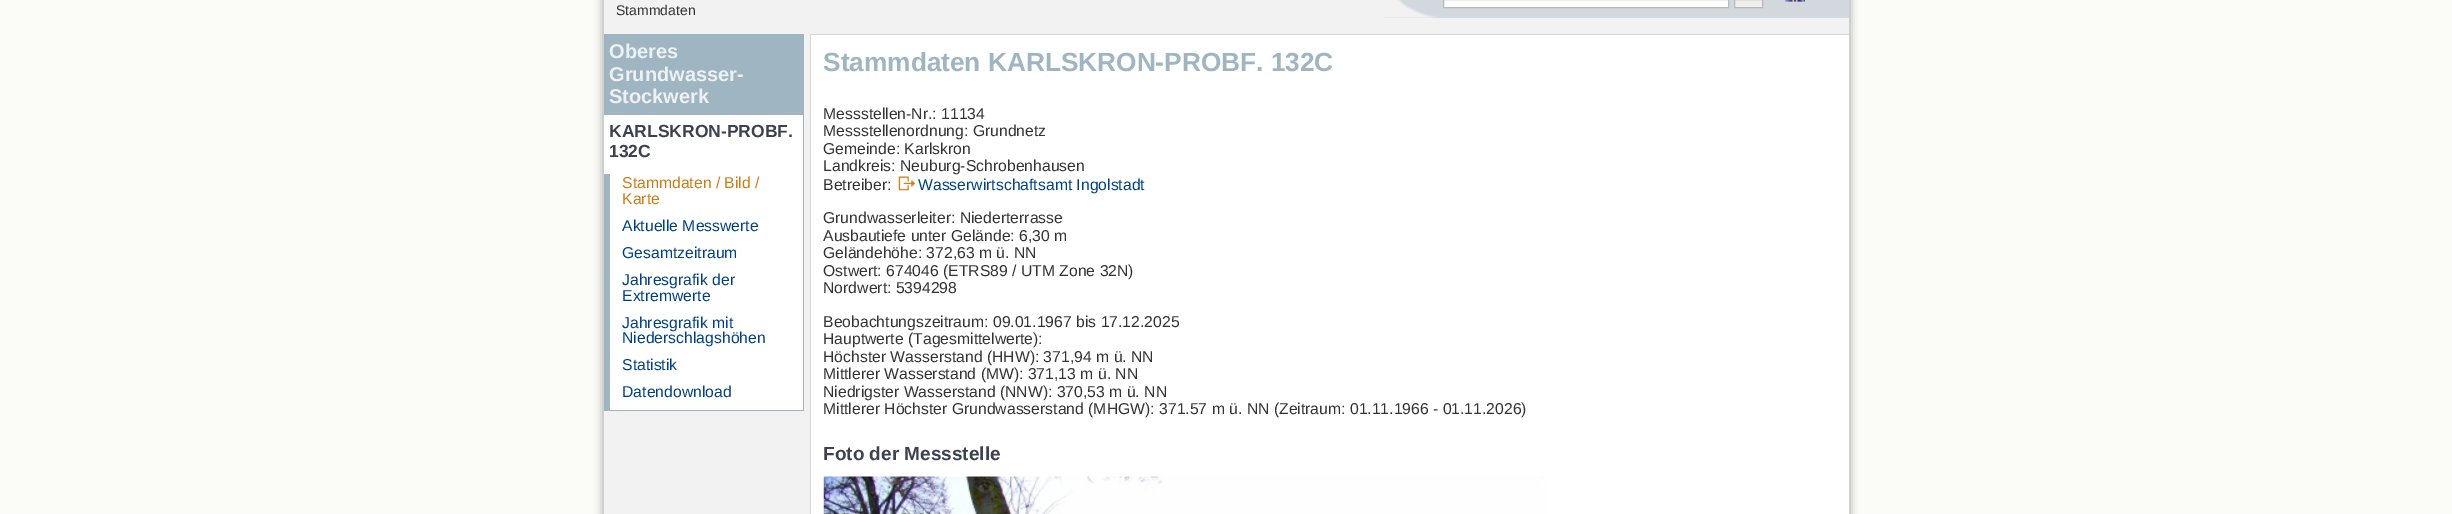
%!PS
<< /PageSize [2452 514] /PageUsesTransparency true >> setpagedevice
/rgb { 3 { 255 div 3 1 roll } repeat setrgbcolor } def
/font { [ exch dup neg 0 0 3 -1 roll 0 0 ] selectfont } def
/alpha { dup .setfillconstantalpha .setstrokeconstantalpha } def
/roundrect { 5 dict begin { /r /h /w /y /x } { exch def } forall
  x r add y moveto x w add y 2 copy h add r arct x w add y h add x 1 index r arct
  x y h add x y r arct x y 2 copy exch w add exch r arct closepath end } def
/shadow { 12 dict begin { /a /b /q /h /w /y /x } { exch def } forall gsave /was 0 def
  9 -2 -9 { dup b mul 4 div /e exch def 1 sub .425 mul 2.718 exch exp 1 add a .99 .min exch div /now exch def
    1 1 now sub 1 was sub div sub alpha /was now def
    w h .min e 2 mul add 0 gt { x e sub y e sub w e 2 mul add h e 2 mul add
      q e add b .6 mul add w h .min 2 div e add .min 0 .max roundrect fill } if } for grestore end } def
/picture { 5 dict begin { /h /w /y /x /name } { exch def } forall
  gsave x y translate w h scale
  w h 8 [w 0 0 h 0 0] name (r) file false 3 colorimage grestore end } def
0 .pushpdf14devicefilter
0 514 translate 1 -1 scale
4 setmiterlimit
251 251 248 rgb
0 0 2452 514 rectfill
0 0 0 rgb
603 -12 1247 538 0 4 0.35 shadow
[
  [1849 0 1 514 206 207 212]
  [603 0 1 514 206 207 212]
  [604 0 1245 514 242 242 242]
  [1384 0 465 18 211 216 223]
] { aload pop rgb rectfill } forall
(img/1.rgb) 1384 0 54 18 picture
255 255 255 rgb
1443.5 -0.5 moveto 1728.5 -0.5 lineto 1728.5 7.5 lineto 1443.5 7.5 lineto closepath gsave fill grestore
184 184 184 rgb
stroke
239 239 239 rgb
1734.5 -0.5 moveto 1762.5 -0.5 lineto 1762.5 7.5 lineto 1734.5 7.5 lineto closepath gsave fill grestore
184 184 184 rgb
stroke
(img/2.rgb) 1785 0 20 2 picture
[
  [604 115 199 295 255 255 255]
  [604 34 200 1 159 181 193]
  [803 34 1 377 159 181 193]
  [604 410 200 1 159 181 193]
  [604 35 199 80 159 181 193]
  [604 174 6 236 159 181 193]
  [811 35 1038 479 255 255 255]
  [810 34 1039 1 215 215 215]
  [810 34 1 480 215 215 215]
] { aload pop rgb rectfill } forall
(img/3.rgb) 898 176 18 15 picture
(img/4.rgb) 823 476 722 38 picture
/LiberationSans-Regular 14 font
51 51 51 rgb
616 15 moveto (Stammdaten) show
/LiberationSans-Bold 20 font
237 241 243 rgb
[
  [(Oberes) 609 58]
  [(Grundwasser-) 609 81]
  [(Stockwerk) 609 103]
] { aload pop moveto show } forall
/LiberationSans-Bold 17.5 font
59 66 79 rgb
609 137 moveto (KARLSKRON-PROBF.) show
609 157 moveto (132C) show
/LiberationSans-Regular 15.75 font
204 123 23 rgb
622 188 moveto (Stammdaten / Bild /) show
622 204 moveto (Karte) show
0 65 133 rgb
[
  [(Aktuelle Messwerte) 622 231]
  [(Gesamtzeitraum) 622 258]
  [(Jahresgrafik der) 622 285]
  [(Extremwerte) 622 301]
  [(Jahresgrafik mit) 622 328]
  [(Niederschlagshöhen) 622 343]
  [(Statistik) 622 370]
  [(Datendownload) 622 397]
] { aload pop moveto show } forall
/LiberationSans-Bold 26.25 font
159 181 193 rgb
823 71 moveto (Stammdaten KARLSKRON-PROBF. 132C) show
/LiberationSans-Regular 15.75 font
51 51 51 rgb
[
  [(Messstellen-Nr.: 11134) 823 119]
  [(Messstellenordnung: Grundnetz) 823 136]
  [(Gemeinde: Karlskron) 823 154]
  [(Landkreis: Neuburg-Schrobenhausen) 823 171]
  [(Betreiber:) 823 190]
] { aload pop moveto show } forall
0 65 133 rgb
918 190 moveto (Wasserwirtschaftsamt Ingolstadt) show
51 51 51 rgb
[
  [(Grundwasserleiter: Niederterrasse) 823 223]
  [(Ausbautiefe unter Gelände: 6,30 m) 823 241]
  [(Geländehöhe: 372,63 m ü. NN) 823 258]
  [(Ostwert: 674046 \(ETRS89 / UTM Zone 32N\)) 823 276]
  [(Nordwert: 5394298) 823 293]
  [(Beobachtungszeitraum: 09.01.1967 bis 17.12.2025) 823 327]
  [(Hauptwerte \(Tagesmittelwerte\):) 823 344]
  [(Höchster Wasserstand \(HHW\): 371,94 m ü. NN) 823 362]
  [(Mittlerer Wasserstand \(MW\): 371,13 m ü. NN) 823 379]
  [(Niedrigster Wasserstand \(NNW\): 370,53 m ü. NN) 823 397]
  [(Mittlerer Höchster Grundwasserstand \(MHGW\): 371.57 m ü. NN \(Zeitraum: 01.11.1966 - 01.11.2026\)) 823 414]
] { aload pop moveto show } forall
/LiberationSans-Bold 19 font
59 66 79 rgb
823 460 moveto (Foto der Messstelle) show
.poppdf14devicefilter showpage
